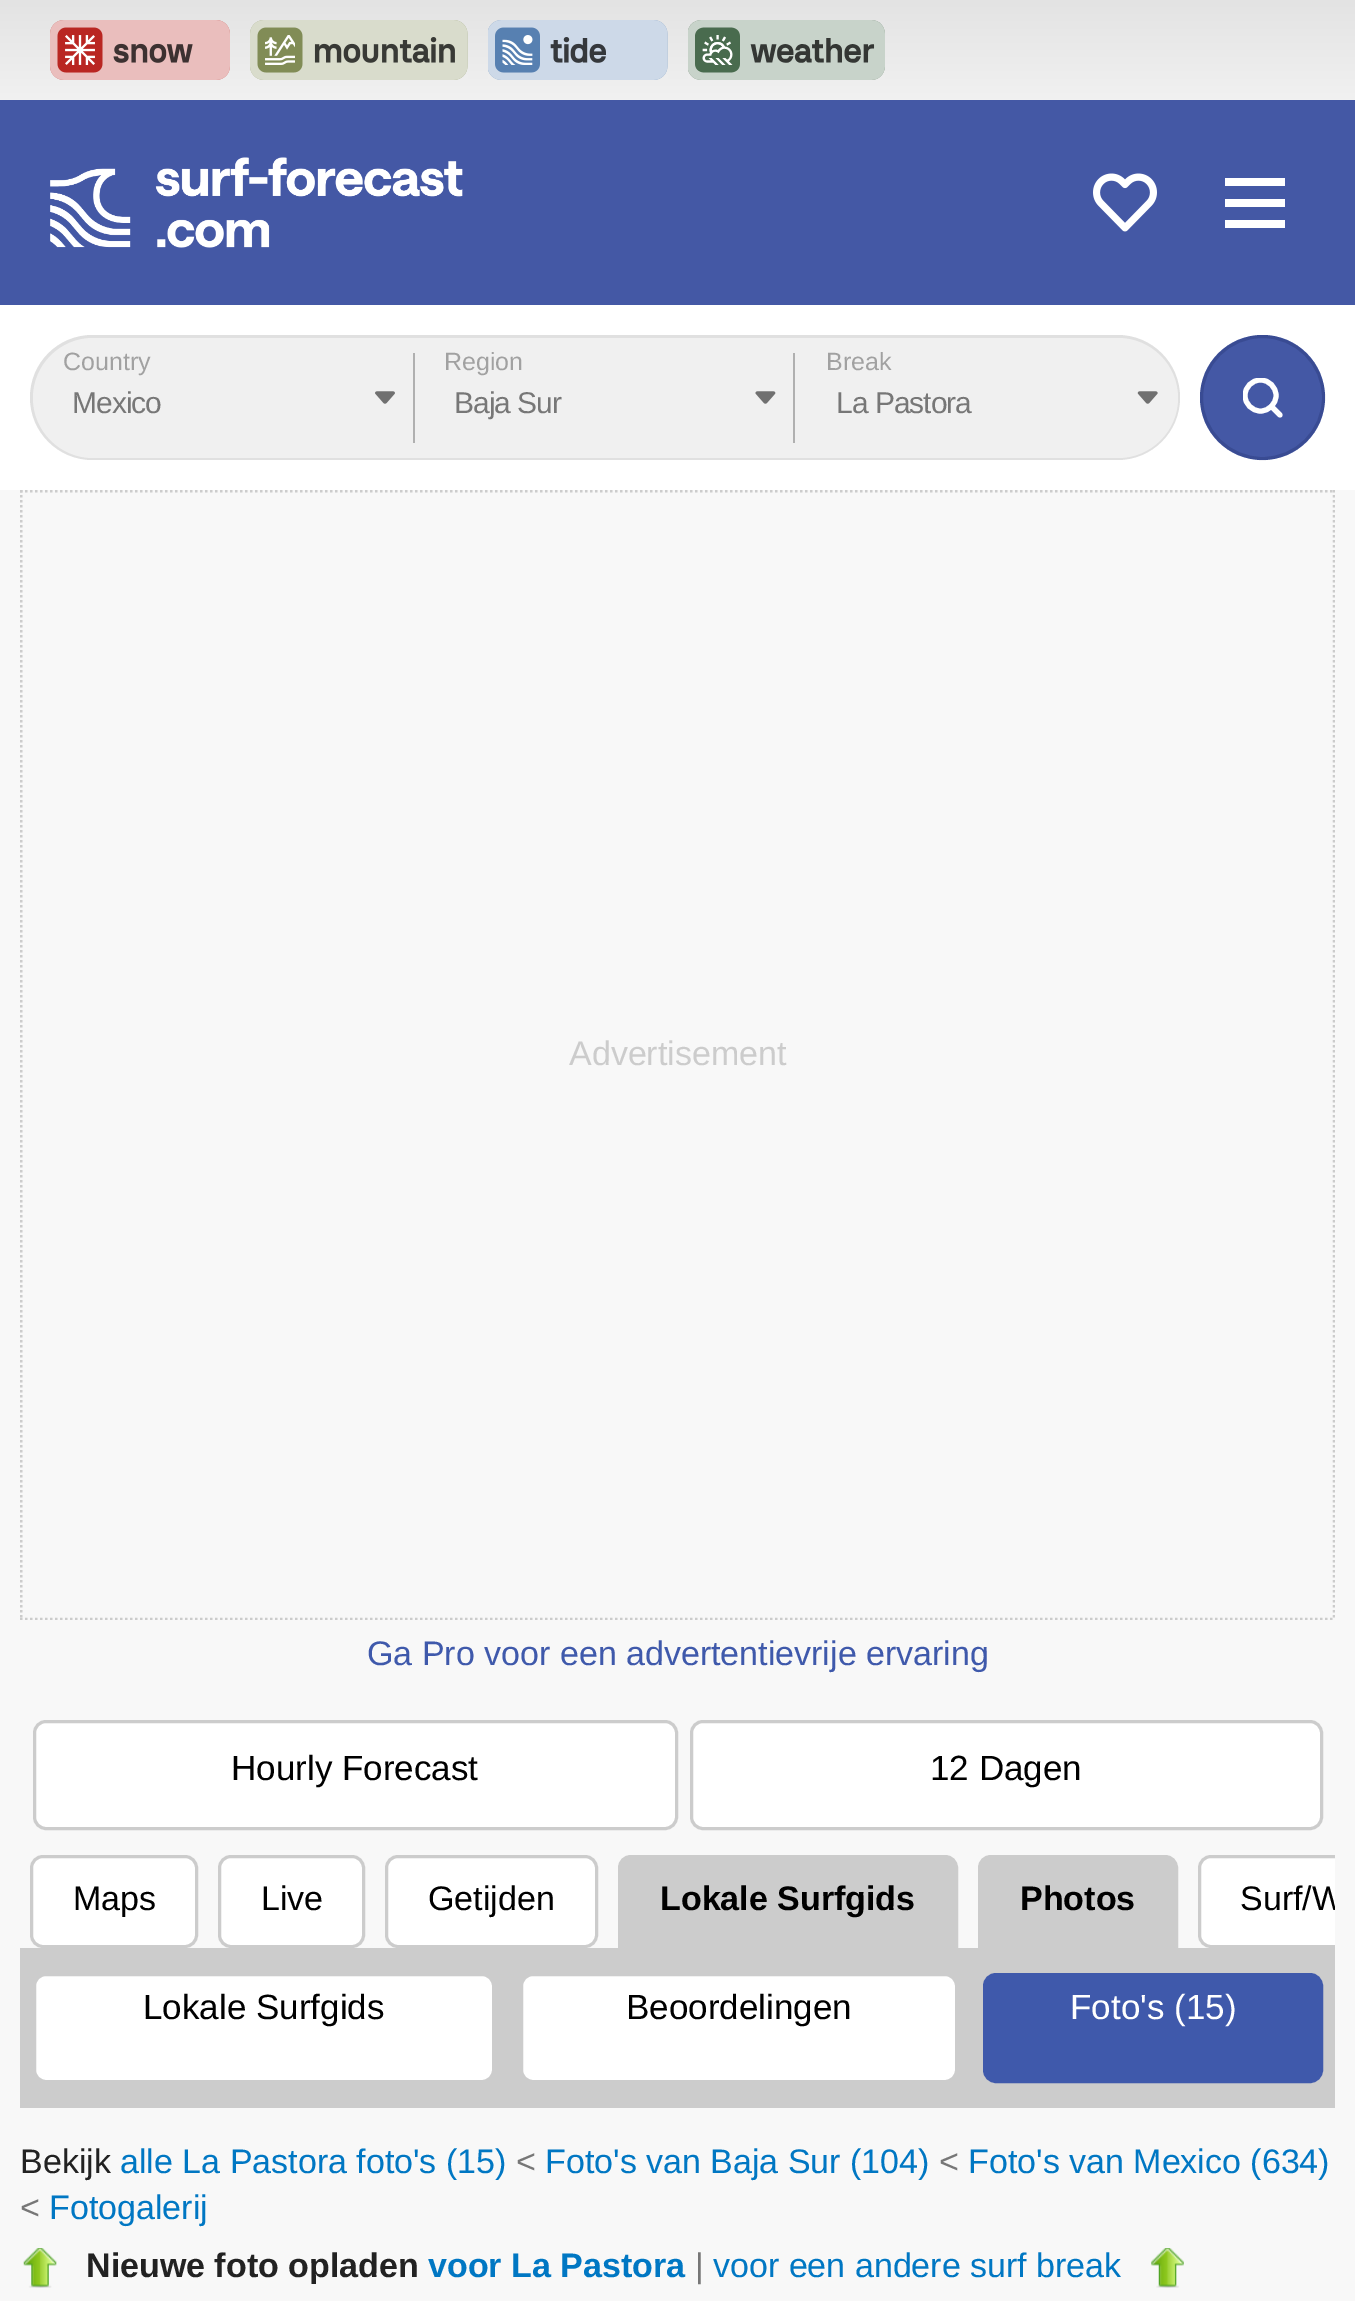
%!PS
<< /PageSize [1355 2301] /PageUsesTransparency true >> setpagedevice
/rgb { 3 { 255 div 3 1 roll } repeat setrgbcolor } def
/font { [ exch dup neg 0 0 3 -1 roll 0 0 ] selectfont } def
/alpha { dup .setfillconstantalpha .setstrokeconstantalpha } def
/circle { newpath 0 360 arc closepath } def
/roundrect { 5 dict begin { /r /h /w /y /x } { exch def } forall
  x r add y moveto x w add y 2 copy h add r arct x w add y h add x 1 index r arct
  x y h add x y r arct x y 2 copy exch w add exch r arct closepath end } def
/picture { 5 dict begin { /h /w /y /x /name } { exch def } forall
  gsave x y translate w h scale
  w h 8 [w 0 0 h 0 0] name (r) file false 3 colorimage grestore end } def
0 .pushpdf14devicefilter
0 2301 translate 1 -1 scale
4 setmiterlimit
248 248 248 rgb
0 0 1355 2301 rectfill
255 255 255 rgb
0 305 1355 185 rectfill
gsave 0 0 moveto 1355 0 lineto 1355 100 lineto 0 100 lineto closepath clip newpath
<< /ShadingType 2 /ColorSpace /DeviceRGB /Coords [678 0 678 100] /Extend [true true] /Function << /FunctionType 2 /Domain [0 1] /C0 [0.89 0.89 0.89] /C1 [0.945 0.945 0.945] /N 1 >> >> shfill grestore
(img/1.rgb) 50 20 180 60 picture
(img/2.rgb) 250 20 218 60 picture
(img/3.rgb) 488 20 180 60 picture
(img/4.rgb) 688 20 197 60 picture
68 88 165 rgb
0 100 1355 205 rectfill
(img/5.rgb) 50 157 413 91 picture
(img/6.rgb) 1093 173 64 59 picture
[
  [1225 178 60 8 255 255 255]
  [1225 199 60 8 255 255 255]
  [1225 220 60 8 255 255 255]
] { aload pop rgb rectfill } forall
224 224 224 rgb
30 335 1150 125 62.5 roundrect fill
240 240 240 rgb
93 338 moveto 415 338 lineto 415 458 lineto 93 458 lineto 60 458 33 431 33 398 curveto 33 365 60 338 93 338 curveto closepath fill
176 176 176 rgb
413 353 2 90 rectfill
(img/7.rgb) 375 391 20 13 picture
240 240 240 rgb
415 338 380 120 rectfill
176 176 176 rgb
793 353 2 90 rectfill
(img/8.rgb) 755 391 21 13 picture
240 240 240 rgb
795 338 moveto 1118 338 lineto 1151 338 1178 365 1178 398 curveto 1178 431 1151 458 1118 458 curveto 795 458 lineto closepath fill
(img/9.rgb) 1137 391 21 13 picture
68 88 165 rgb
1262.5 397.5 62.5 circle fill
0.2 alpha
11 24 75 rgb
3 setlinewidth
1262.5 397.5 61 circle stroke
gsave
1243 378 40 40 rectclip
1 alpha
255 255 255 rgb
5 setlinewidth
1 setlinecap
1 setlinejoin
1260.5 411 moveto 1269 411 1276 404 1276 395.5 curveto 1276 387 1269 380 1260.5 380 curveto 1252 380 1245 387 1245 395.5 curveto 1245 404 1252 411 1260.5 411 curveto closepath stroke
grestore
1 alpha
255 255 255 rgb
5 setlinewidth
1 setlinecap
1 setlinejoin
1280 415 moveto 1271.5 406.5 lineto stroke
gsave
20 490 1315 1130 rectclip
204 204 204 rgb
2.5 setlinewidth
0 setlinecap
0 setlinejoin
[2.5 2.5] 0 setdash
20 491 moveto 1335 491 lineto stroke
1334 490 moveto 1334 1620 lineto stroke
20 1619 moveto 1335 1619 lineto stroke
21 490 moveto 21 1620 lineto stroke
grestore
34.5 1721.5 642 107 11.5 roundrect gsave fill grestore
204 204 204 rgb
3 setlinewidth
0 setlinecap
0 setlinejoin
stroke
255 255 255 rgb
691.5 1721.5 630 107 11.5 roundrect gsave fill grestore
204 204 204 rgb
stroke
255 255 255 rgb
31.5 1856.5 165 90 11.5 roundrect gsave fill grestore
204 204 204 rgb
stroke
255 255 255 rgb
219.5 1856.5 144 90 11.5 roundrect gsave fill grestore
204 204 204 rgb
stroke
255 255 255 rgb
386.5 1856.5 210 90 11.5 roundrect gsave fill grestore
204 204 204 rgb
stroke
631 1856.5 moveto 945 1856.5 lineto 951.5 1856.5 956.5 1861.5 956.5 1868 curveto 956.5 1946.5 lineto 619.5 1946.5 lineto 619.5 1868 lineto 619.5 1861.5 624.5 1856.5 631 1856.5 curveto closepath gsave fill grestore
stroke
991 1856.5 moveto 1165 1856.5 lineto 1171.5 1856.5 1176.5 1861.5 1176.5 1868 curveto 1176.5 1946.5 lineto 979.5 1946.5 lineto 979.5 1868 lineto 979.5 1861.5 984.5 1856.5 991 1856.5 curveto closepath gsave fill grestore
stroke
255 255 255 rgb
1211 1855 moveto 1335 1855 lineto 1335 1948 lineto 1211 1948 lineto 1204 1948 1198 1942 1198 1935 curveto 1198 1868 lineto 1198 1861 1204 1855 1211 1855 curveto closepath fill
gsave
20 1855 1315 93 rectclip
204 204 204 rgb
1199.5 1856.5 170 90 11.5 roundrect stroke
grestore
204 204 204 rgb
20 1948 1315 160 rectfill
255 255 255 rgb
34.5 1974.5 459 107 11.5 roundrect gsave fill grestore
204 204 204 rgb
stroke
255 255 255 rgb
521.5 1974.5 435 107 11.5 roundrect gsave fill grestore
204 204 204 rgb
stroke
63 89 171 rgb
984.5 1974.5 337 107 11.5 roundrect gsave fill grestore
stroke
(img/10.rgb) 23 2248 34 40 picture
(img/11.rgb) 1151 2248 33 40 picture
/LiberationSans-Regular 25 font
161 161 161 rgb
63 370 moveto (Country) show
/LiberationSans-Regular 30 font
119 119 119 rgb
72 413 moveto -1 0 (Mexico) ashow
/LiberationSans-Regular 25 font
161 161 161 rgb
444 370 moveto (Region) show
/LiberationSans-Regular 30 font
119 119 119 rgb
454 413 moveto -1 0 (Baja Sur) ashow
/LiberationSans-Regular 25 font
161 161 161 rgb
826 370 moveto (Break) show
/LiberationSans-Regular 30 font
119 119 119 rgb
836 413 moveto -1 0 (La Pastora) ashow
/LiberationSans-Regular 34 font
204 204 204 rgb
569 1065 moveto (Advertisement) show
63 89 171 rgb
367 1665 moveto (Ga Pro voor een advertentievrije ervaring) show
/LiberationSans-Regular 35 font
0 0 0 rgb
231 1780 moveto (Hourly Forecast) show
930 1780 moveto (12 Dagen) show
/LiberationSans-Regular 34 font
[
  [(Maps) 73 1910]
  [(Live) 261 1910]
  [(Getijden) 428 1910]
] { aload pop moveto show } forall
/LiberationSans-Bold 34 font
660 1910 moveto (Lokale Surfgids) show
1020 1910 moveto (Photos) show
gsave
20 1855 1315 93 rectclip
/LiberationSans-Regular 34 font
1240 1910 moveto (Surf/W) show
grestore
/LiberationSans-Regular 35 font
143 2019 moveto (Lokale Surfgids) show
626 2019 moveto (Beoordelingen) show
255 255 255 rgb
1070 2019 moveto (Foto's \(15\)) show
/LiberationSans-Regular 34 font
34 34 34 rgb
20 2173 moveto (Bekijk) show
0 119 195 rgb
120 2173 moveto (alle La Pastora foto's \(15\)) show
119 119 119 rgb
516 2173 moveto (<) show
0 119 195 rgb
545 2173 moveto (Foto's van Baja Sur \(104\)) show
119 119 119 rgb
939 2173 moveto (<) show
0 119 195 rgb
968 2173 moveto (Foto's van Mexico \(634\)) show
119 119 119 rgb
20 2219 moveto (<) show
0 119 195 rgb
49 2219 moveto (Fotogalerij) show
/LiberationSans-Bold 34 font
34 34 34 rgb
86 2277 moveto (Nieuwe foto opladen) show
0 119 195 rgb
428 2277 moveto (voor La Pastora) show
/LiberationSans-Regular 34 font
119 119 119 rgb
695 2277 moveto (|) show
0 119 195 rgb
713 2277 moveto (voor een andere surf break) show
.poppdf14devicefilter showpage
